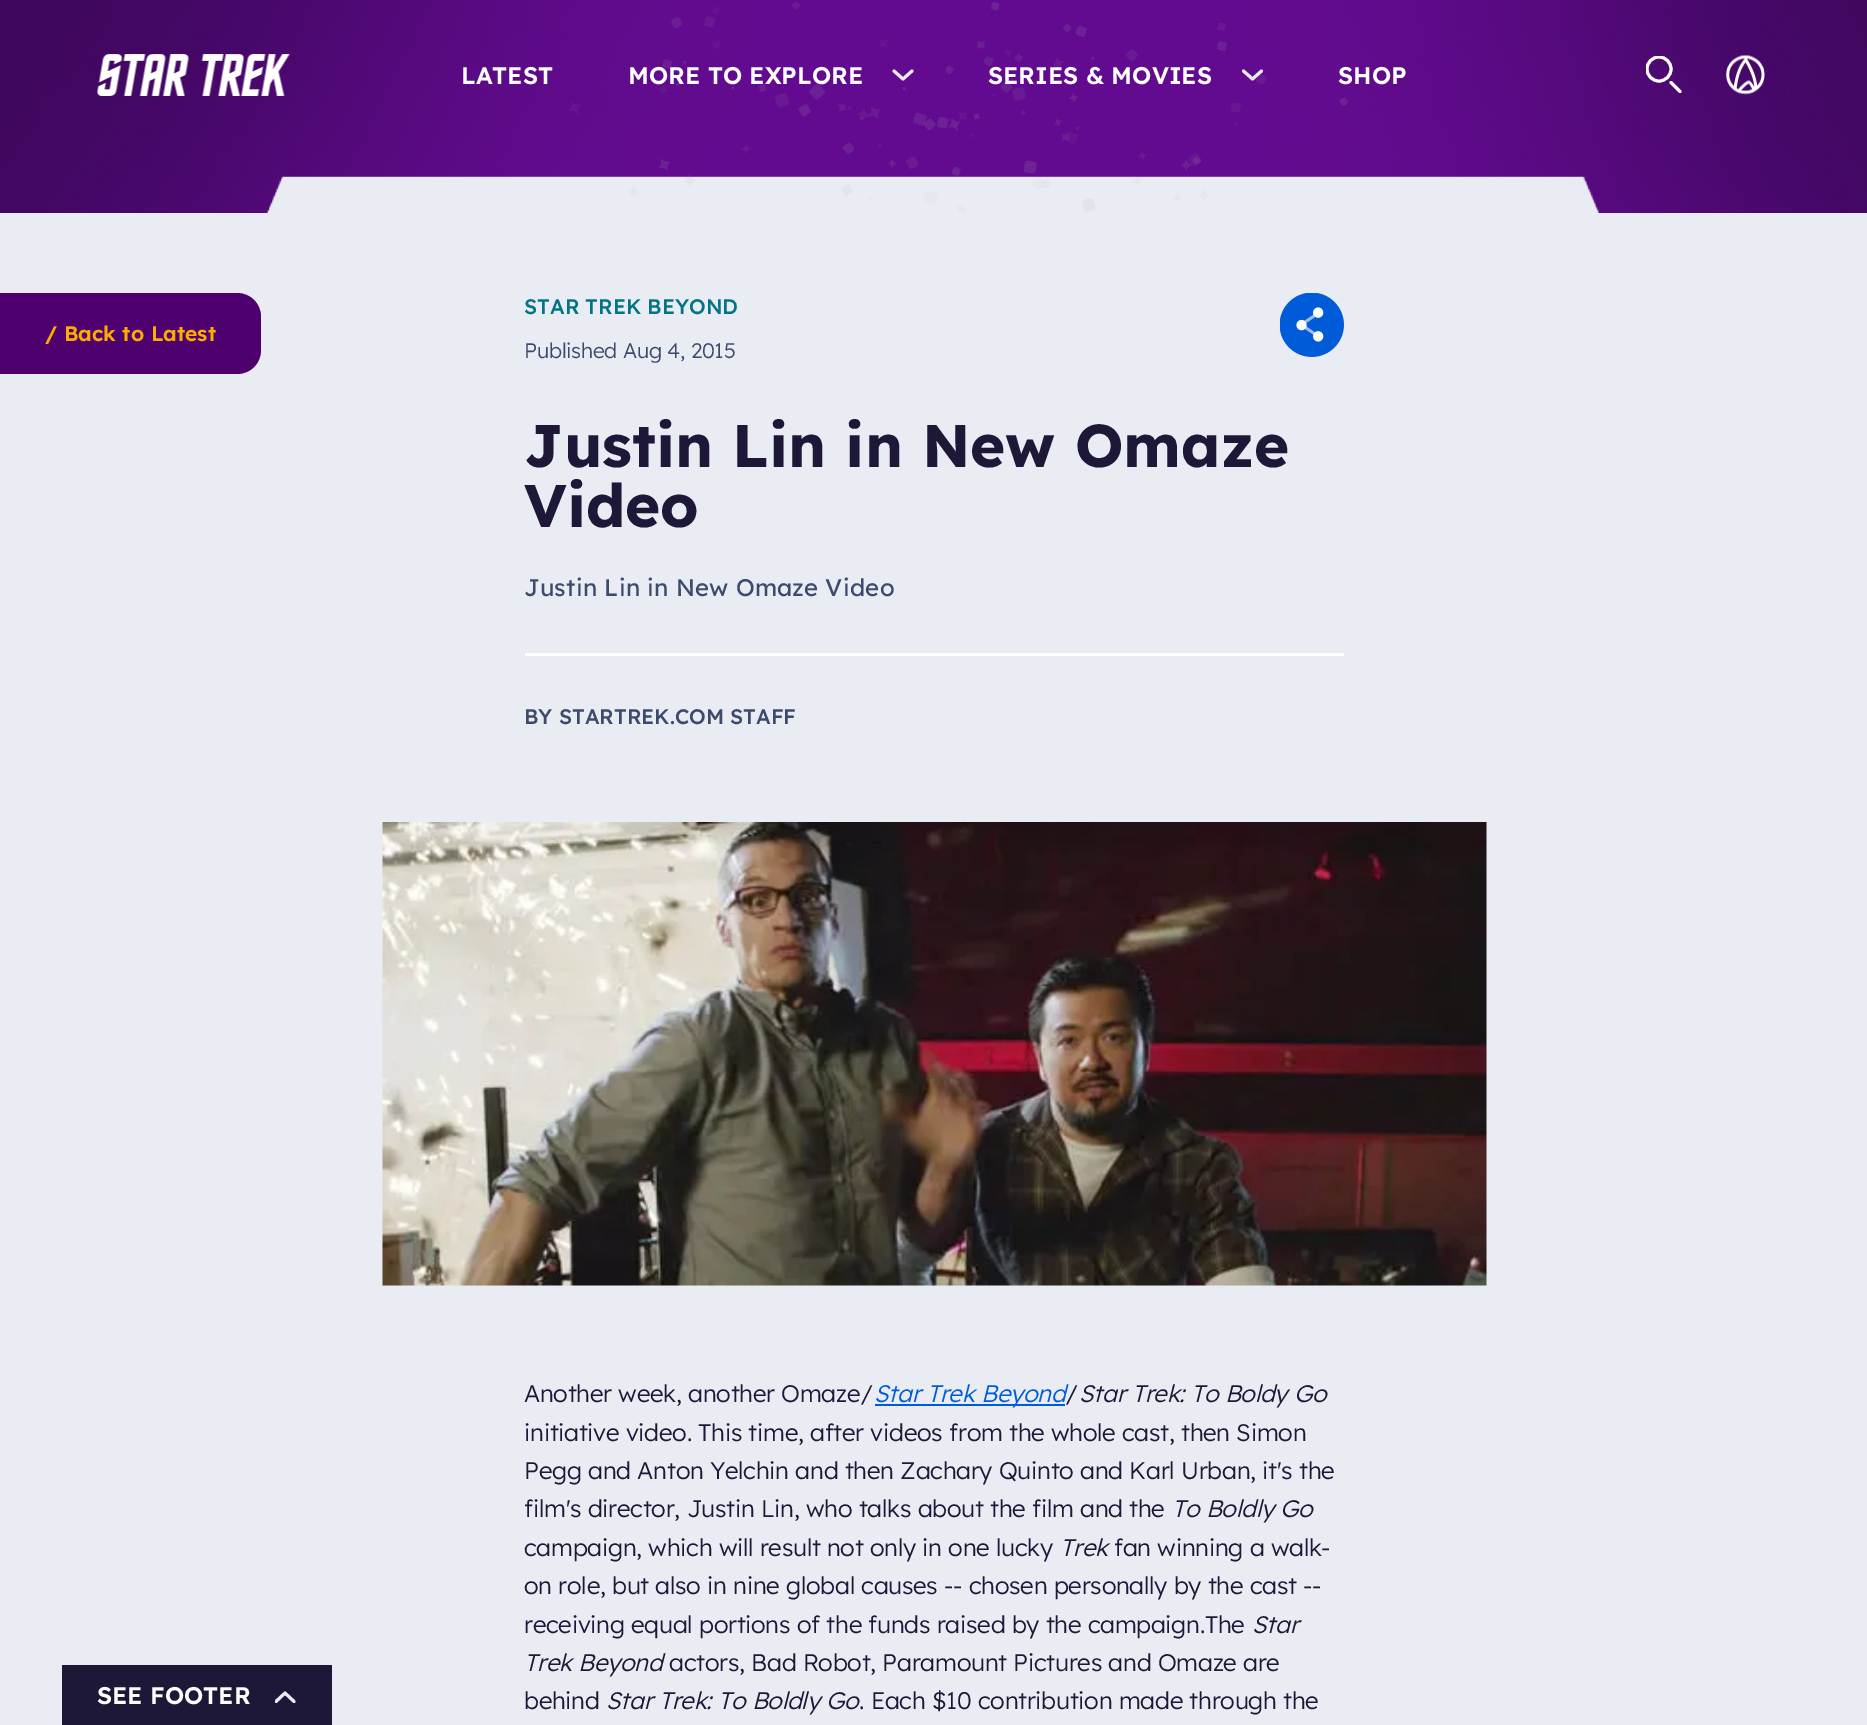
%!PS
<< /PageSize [1867 1725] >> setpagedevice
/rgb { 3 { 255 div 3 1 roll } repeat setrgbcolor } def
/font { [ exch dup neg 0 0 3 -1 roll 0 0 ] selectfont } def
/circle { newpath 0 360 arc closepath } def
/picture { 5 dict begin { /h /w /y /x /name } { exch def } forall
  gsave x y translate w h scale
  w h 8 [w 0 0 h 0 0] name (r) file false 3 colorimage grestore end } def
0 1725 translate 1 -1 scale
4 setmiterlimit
233 236 243 rgb
0 0 1867 1725 rectfill
(img/1.rgb) 0 0 1867 213 picture
(img/2.rgb) 568 1 781 212 picture
(img/3.rgb) 97 54 193 42 picture
3 setlinewidth
1 setlinecap
1 setlinejoin
912 71 moveto 903 79 lineto 894 71 lineto stroke
1261.5 71 moveto 1252.5 79 lineto 1243.5 71 lineto stroke
255 255 255 rgb
0 setlinejoin
1680 91.5 moveto 1671 82.5 lineto stroke
gsave
1646 56 37 39 rectclip
0 setlinecap
1659 69 12 circle stroke
grestore
(img/4.rgb) 1726 55 39 40 picture
78 0 111 rgb
0 293 moveto 237 293 lineto 250.5 293 261 303.5 261 317 curveto 261 350 lineto 261 363.5 250.5 374 237 374 curveto 0 374 lineto closepath fill
(img/5.rgb) 1280 293 64 64 picture
255 255 255 rgb
525 653 819 3 rectfill
(img/6.rgb) 382 822 1105 464 picture
0 91 216 rgb
875 1404 190 2 rectfill
29 24 55 rgb
62 1665 270 60 rectfill
gsave
275 1691 21 13 rectclip
233 236 243 rgb
1 setlinejoin
276 1701.5 moveto 285 1693 lineto 294 1701.5 lineto stroke
grestore
/Lexend-SemiBold 24 font
255 255 255 rgb
[
  [(LATEST) 461 84]
  [(MORE TO EXPLORE) 628 84]
  [(SERIES & MOVIES) 988 84]
  [(SHOP) 1338 84]
] { aload pop moveto show } forall
/Lexend-SemiBold 21 font
255 172 0 rgb
45 341 moveto (/ Back to Latest) show
/Lexend-Medium 21 font
1 117 132 rgb
524 314 moveto (STAR TREK BEYOND) show
/Lexend-Light 21 font
61 74 108 rgb
524 358 moveto -0.25 0 (Published Aug 4, 2015) ashow
/Lexend-Bold 60 font
29 24 55 rgb
524 467 moveto (Justin Lin in New Omaze) show
524 527 moveto (Video) show
/Lexend-Regular 24 font
61 74 108 rgb
524 596 moveto 0.25 0 (Justin Lin in New Omaze Video) ashow
/Lexend-Medium 21 font
524 724 moveto (BY STARTREK.COM STAFF) show
/Lexend-Light 24 font
29 24 55 rgb
524 1402 moveto -0.25 0 (Another week, another Omaze/) ashow
/Lexend-LightItalic 24 font
0 91 216 rgb
874 1402 moveto -0.25 0 (Star Trek Beyond) ashow
/Lexend-Light 24 font
29 24 55 rgb
1065 1402 moveto -0.25 0 (/) ashow
/Lexend-LightItalic 24 font
1079 1402 moveto -0.25 0 (Star Trek: To Boldy Go) ashow
/Lexend-Light 24 font
524 1441 moveto -0.25 0 (initiative video. This time, after videos from the whole cast, then Simon) ashow
524 1479 moveto -0.25 0 (Pegg and Anton Yelchin and then Zachary Quinto and Karl Urban, it's the) ashow
524 1517 moveto -0.25 0 (film's director, Justin Lin, who talks about the film and the) ashow
/Lexend-LightItalic 24 font
1172 1517 moveto -0.25 0 (To Boldly Go) ashow
/Lexend-Light 24 font
524 1556 moveto -0.25 0 (campaign, which will result not only in one lucky) ashow
/Lexend-LightItalic 24 font
1060 1556 moveto -0.25 0 (Trek) ashow
/Lexend-Light 24 font
1114 1556 moveto -0.25 0 (fan winning a walk-) ashow
524 1594 moveto -0.25 0 (on role, but also in nine global causes -- chosen personally by the cast --) ashow
524 1633 moveto -0.25 0 (receiving equal portions of the funds raised by the campaign.The) ashow
/Lexend-LightItalic 24 font
1252 1633 moveto -0.25 0 (Star) ashow
524 1671 moveto -0.25 0 (Trek Beyond) ashow
/Lexend-Light 24 font
669 1671 moveto -0.25 0 (actors, Bad Robot, Paramount Pictures and Omaze are) ashow
524 1709 moveto -0.25 0 (behind) ashow
/Lexend-LightItalic 24 font
606 1709 moveto -0.25 0 (Star Trek: To Boldly Go) ashow
/Lexend-Light 24 font
859 1709 moveto -0.25 0 (. Each $10 contribution made through the) ashow
/Lexend-SemiBold 24 font
255 255 255 rgb
97 1704 moveto (SEE FOOTER) show
showpage
